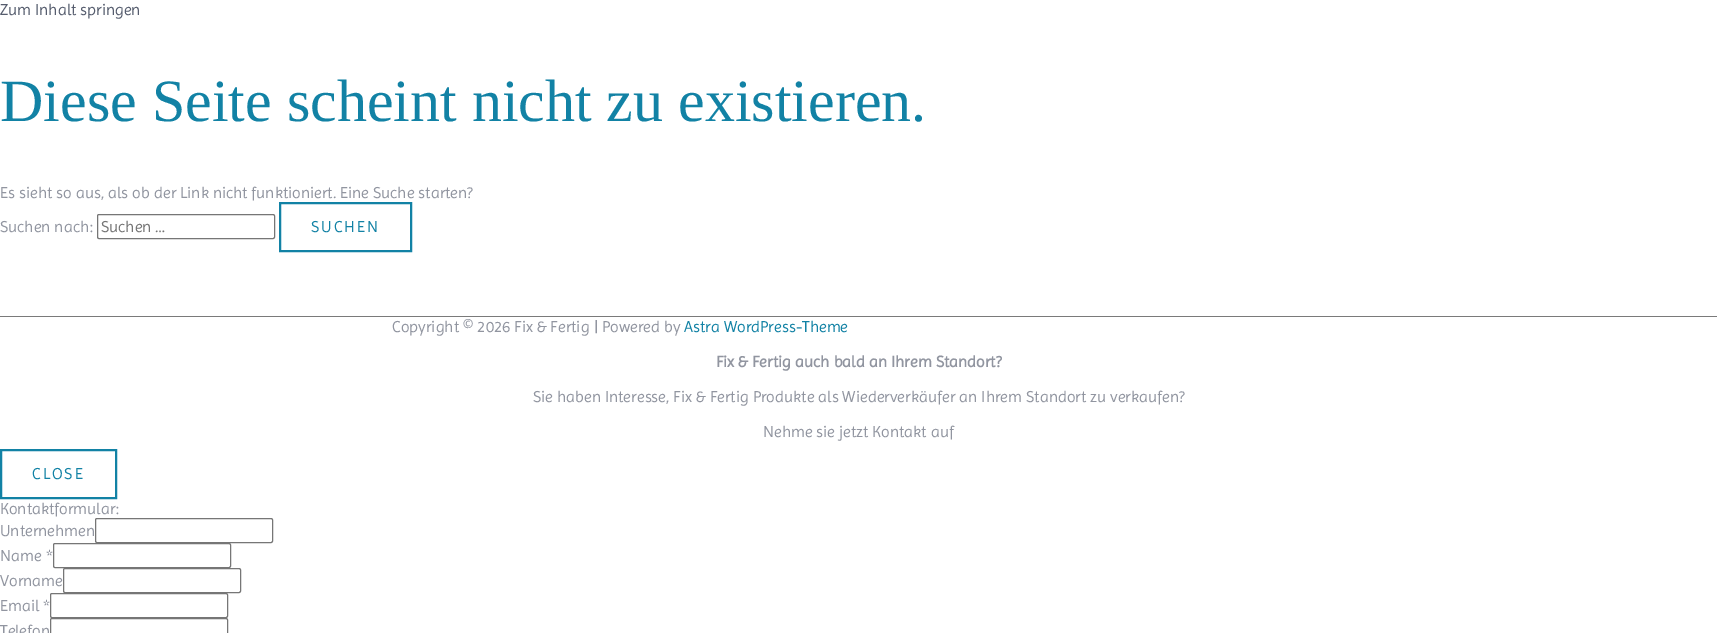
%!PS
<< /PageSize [1717 633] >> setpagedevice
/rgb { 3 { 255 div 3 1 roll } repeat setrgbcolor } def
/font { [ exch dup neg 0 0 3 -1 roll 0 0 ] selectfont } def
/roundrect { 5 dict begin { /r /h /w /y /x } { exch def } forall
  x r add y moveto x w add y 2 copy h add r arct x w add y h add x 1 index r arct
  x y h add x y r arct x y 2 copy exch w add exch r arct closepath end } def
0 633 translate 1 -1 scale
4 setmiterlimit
255 255 255 rgb
0 0 1717 633 rectfill
118 118 118 rgb
97.5 214.5 177 24 1.5 roundrect stroke
18 130 165 rgb
2 setlinewidth
280 203 131 48 rectstroke
122 122 122 rgb
0 316 1717 1 rectfill
18 130 165 rgb
1 450 115 48 rectstroke
118 118 118 rgb
1 setlinewidth
95.5 518.5 177 24 1.5 roundrect stroke
53.5 543.5 177 24 1.5 roundrect stroke
63.5 568.5 177 24 1.5 roundrect stroke
50.5 593.5 177 24 1.5 roundrect stroke
50.5 618.5 177 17 1.5 roundrect stroke
/Imprima-Regular 16 font
86 93 110 rgb
0 15 moveto (Zum Inhalt springen) show
/LiberationSerif-Regular 60 font
18 130 165 rgb
0 121 moveto (Diese Seite scheint nicht zu existieren.) show
/Imprima-Regular 16 font
145 149 160 rgb
0 198 moveto (Es sieht so aus, als ob der Link nicht funktioniert. Eine Suche starten?) show
0 232 moveto (Suchen nach:) show
117 117 117 rgb
101 232 moveto (Suchen …) show
18 130 165 rgb
311 232 moveto 2 0 (SUCHEN) ashow
145 149 160 rgb
392 332 moveto (Copyright © 2026 Fix & Fertig | Powered by) show
18 130 165 rgb
684 332 moveto (Astra WordPress-Theme) show
/Imprima-Bold 16 font
145 149 160 rgb
716 367 moveto (Fix & Fertig auch bald an Ihrem Standort?) show
/Imprima-Regular 16 font
533 402 moveto (Sie haben Interesse, Fix & Fertig Produkte als Wiederverkäufer an Ihrem Standort zu verkaufen?) show
763 437 moveto (Nehme sie jetzt Kontakt auf) show
18 130 165 rgb
32 479 moveto 2 0 (CLOSE) ashow
145 149 160 rgb
[
  [(Kontaktformular:) 0 514]
  [(Unternehmen) 0 536]
  [(Name *) 0 561]
  [(Vorname) 0 586]
  [(Email *) 0 611]
  [(Telefon) 0 636]
] { aload pop moveto show } forall
showpage
